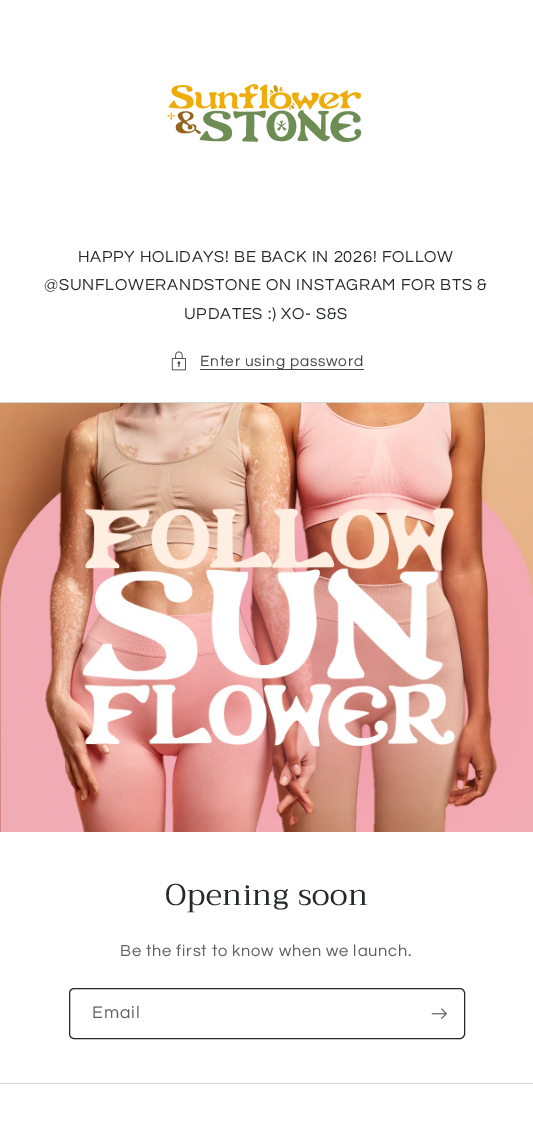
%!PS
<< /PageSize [533 1124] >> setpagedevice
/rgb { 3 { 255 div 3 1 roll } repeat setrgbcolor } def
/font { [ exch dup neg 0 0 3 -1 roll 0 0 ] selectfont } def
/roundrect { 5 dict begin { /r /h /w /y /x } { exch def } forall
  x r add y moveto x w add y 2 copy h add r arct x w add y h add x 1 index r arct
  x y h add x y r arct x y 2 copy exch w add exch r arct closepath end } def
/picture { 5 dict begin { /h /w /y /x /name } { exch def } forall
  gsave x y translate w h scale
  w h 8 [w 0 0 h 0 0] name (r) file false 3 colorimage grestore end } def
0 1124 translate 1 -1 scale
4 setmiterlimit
255 255 255 rgb
0 0 533 1124 rectfill
(img/1.rgb) 167 84 195 59 picture
(img/2.rgb) 171 351 15 20 picture
71 72 74 rgb
200 369 164 1 rectfill
212 212 212 rgb
0 402 533 1 rectfill
(img/3.rgb) 0 403 533 429 picture
39 40 42 rgb
69.5 988.5 395 50 4.5 roundrect stroke
(img/4.rgb) 431 1008 16 11 picture
212 212 212 rgb
0 1083 533 1 rectfill
/Questrial-Regular 16.5 font
39 40 42 rgb
78 262 moveto 0.75 0 (HAPPY HOLIDAYS! BE BACK IN 2026! FOLLOW) ashow
44 290 moveto 0.75 0 (@SUNFLOWERANDSTONE ON INSTAGRAM FOR BTS &) ashow
184 319 moveto 0.75 0 (UPDATES :\) XO- S&S) ashow
/Questrial-Regular 15.4 font
71 72 74 rgb
200 366 moveto 0.75 0 (Enter using password) ashow
/Trirong-Regular 30 font
39 40 42 rgb
165 905 moveto 0.6 0 (Opening soon) ashow
/Questrial-Regular 16.5 font
93 94 95 rgb
120 956 moveto 0.75 0 (Be the first to know when we launch.) ashow
/Questrial-Regular 17.5 font
92 1018 moveto 1 0 (Email) ashow
showpage
